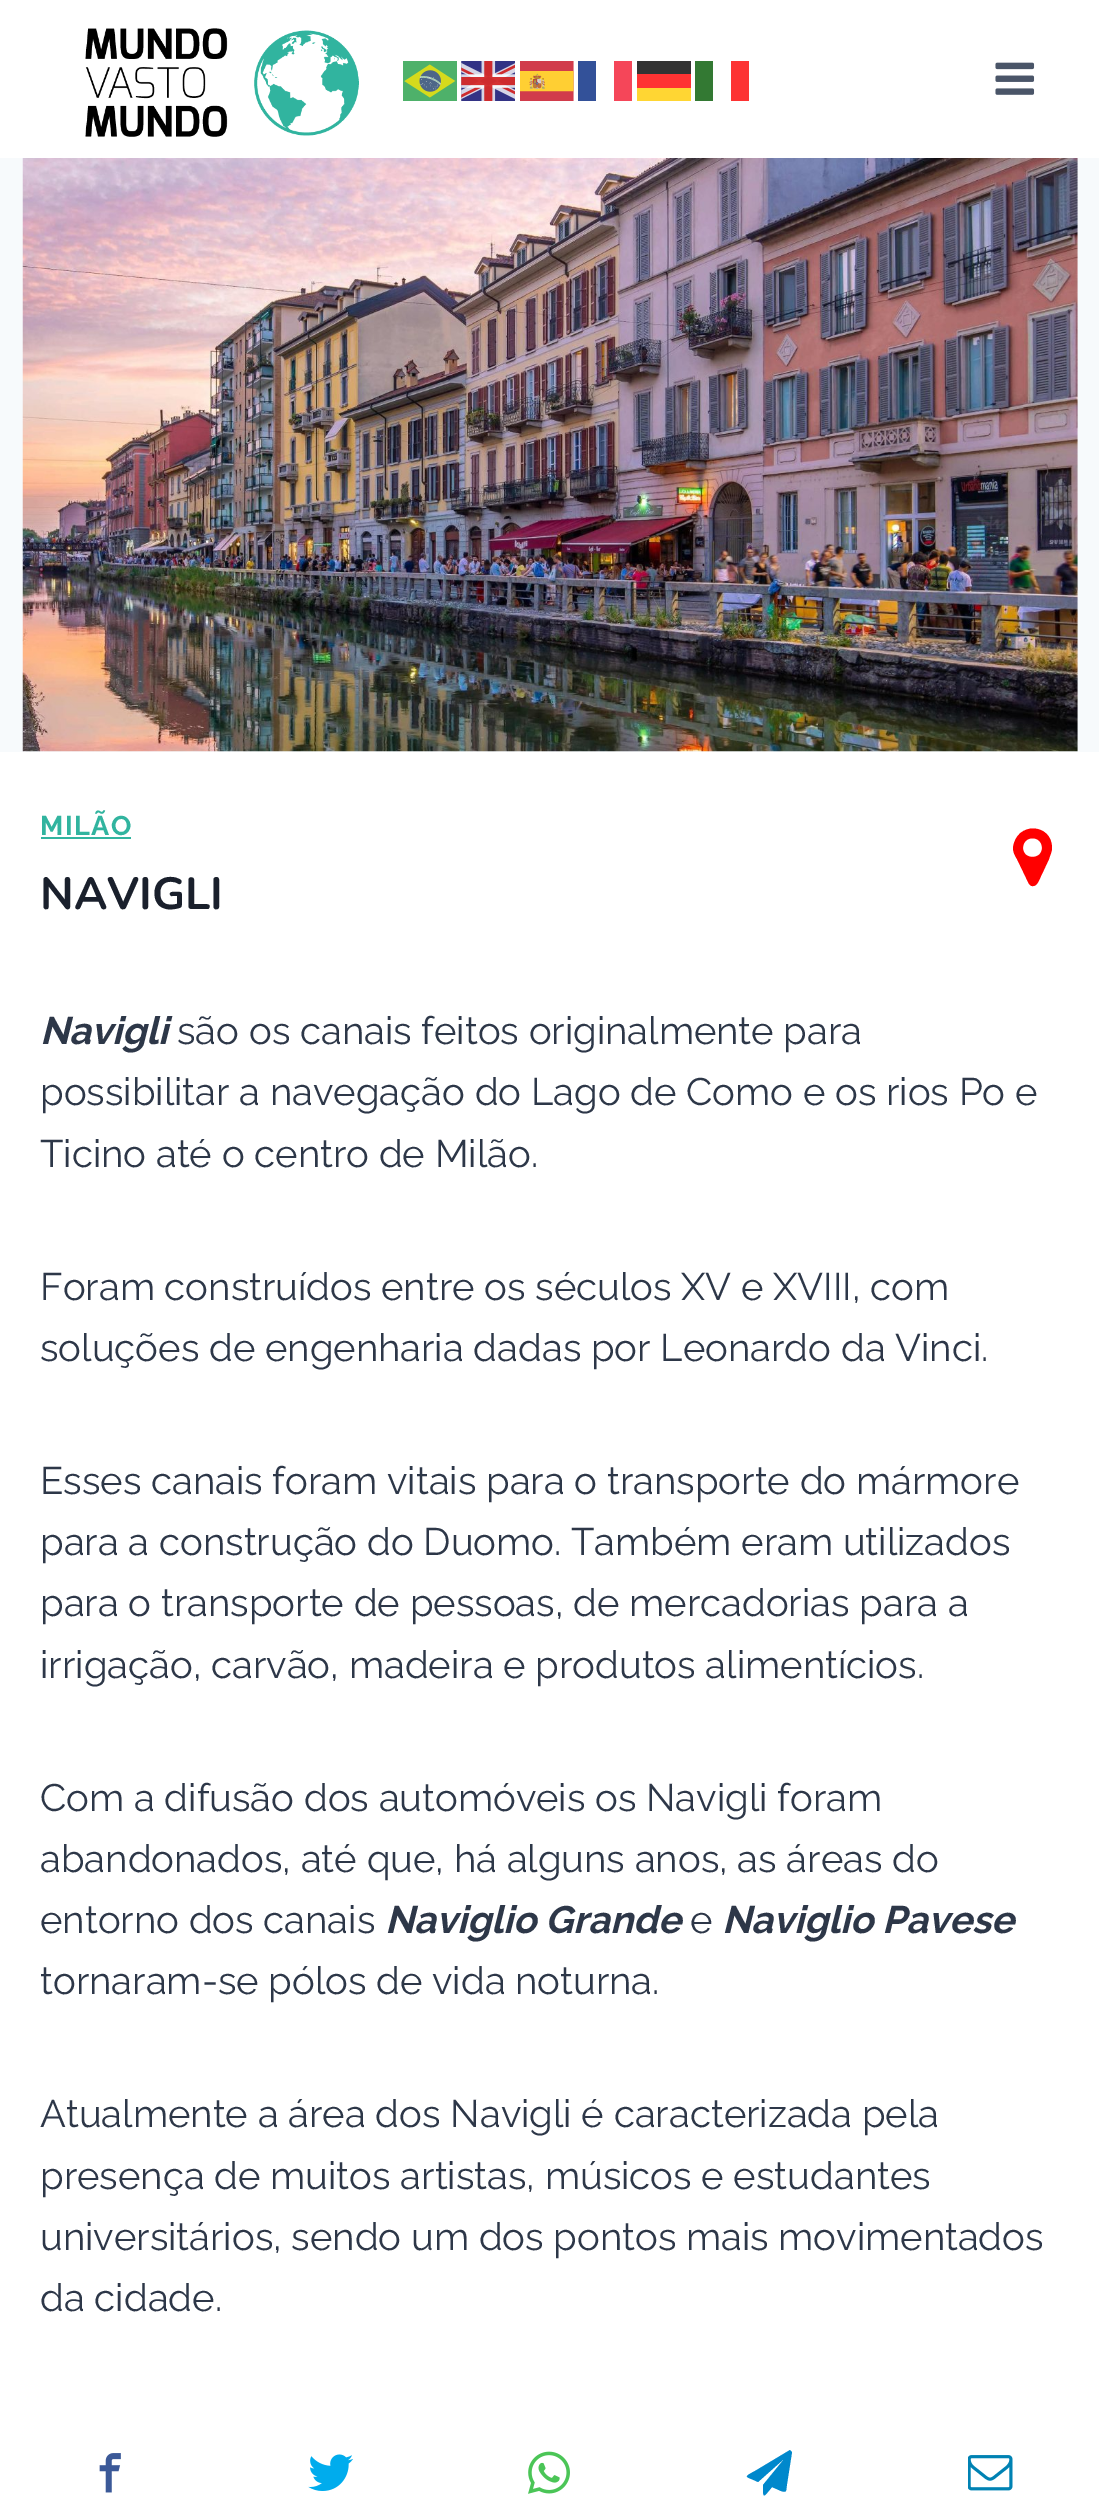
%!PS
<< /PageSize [1099 2516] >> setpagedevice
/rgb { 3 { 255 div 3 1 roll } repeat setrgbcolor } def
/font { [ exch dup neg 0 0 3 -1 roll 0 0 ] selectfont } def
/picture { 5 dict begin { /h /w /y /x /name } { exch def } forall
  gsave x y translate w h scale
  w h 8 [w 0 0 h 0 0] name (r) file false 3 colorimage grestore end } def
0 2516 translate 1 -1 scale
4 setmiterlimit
247 250 252 rgb
0 0 1099 2516 rectfill
255 255 255 rgb
0 0 1099 158 rectfill
(img/1.rgb) 85 28 274 109 picture
(img/2.rgb) 403 61 54 40 picture
(img/3.rgb) 461 61 54 40 picture
(img/4.rgb) 520 61 54 40 picture
[
  [578 61 18 40 51 81 153]
  [614 61 18 40 245 70 89]
  [637 61 54 13 51 51 51]
  [695 61 18 40 51 121 51]
  [731 61 18 40 253 51 51]
  [637 74 54 14 255 51 51]
  [637 88 54 13 255 214 51]
] { aload pop rgb rectfill } forall
(img/5.rgb) 995 62 40 33 picture
(img/6.rgb) 22 158 1056 594 picture
255 255 255 rgb
0 752 1099 1676 rectfill
49 180 159 rgb
41 837 90 2 rectfill
255 0 0 rgb
1042 848 moveto 1042 835 1023 835 1023 848 curveto 1023 860 1042 860 1042 848 curveto closepath 1052 848 moveto 1052 852 1050 855 1049 859 curveto 1042 874 lineto 1040 877 1038 887 1032 886 curveto 1031 886 1030 885 1029 884 curveto 1017 859 lineto 1015 856 1013 852 1013 848 curveto 1016 821 1052 823 1052 848 curveto closepath fill
255 255 255 rgb
0 2428 1099 88 rectfill
(img/7.rgb) 99 2453 22 40 picture
(img/8.rgb) 308 2454 45 37 picture
(img/9.rgb) 528 2451 42 43 picture
0 136 204 rgb
791 2451 moveto 792 2452 lineto 787 2484 lineto 786 2491 787 2493 781 2491 curveto 772 2487 lineto 763 2498 763 2499 763 2485 curveto 785 2458 lineto 758 2482 lineto 746 2476 742 2478 755 2471 curveto 790 2450 lineto closepath fill
(img/10.rgb) 968 2455 45 36 picture
/Raleway-Bold 27 font
49 180 159 rgb
40 835 moveto 1.5 0 (MILÃO) ashow
/Nunito-ExtraLight 45 font
26 32 44 rgb
40 909 moveto (NAVIGLI) show
/Raleway-BoldItalic 38.25 font
45 55 72 rgb
40 1044 moveto (Navigli) show
/Raleway-Regular 38.25 font
[
  [(são os canais feitos originalmente para) 177 1044]
  [(possibilitar a navegação do Lago de Como e os rios Po e) 40 1105]
  [(Ticino até o centro de Milão.) 40 1167]
  [(Foram construídos entre os séculos XV e XVIII, com) 40 1300]
  [(soluções de engenharia dadas por Leonardo da Vinci.) 40 1361]
  [(Esses canais foram vitais para o transporte do mármore) 40 1494]
  [(para a construção do Duomo. Também eram utilizados) 40 1555]
  [(para o transporte de pessoas, de mercadorias para a) 40 1616]
  [(irrigação, carvão, madeira e produtos alimentícios.) 40 1678]
  [(Com a difusão dos automóveis os Navigli foram) 40 1811]
  [(abandonados, até que, há alguns anos, as áreas do) 40 1872]
  [(entorno dos canais) 40 1933]
] { aload pop moveto show } forall
/Raleway-BoldItalic 38.25 font
385 1933 moveto (Naviglio Grande) show
/Raleway-Regular 38.25 font
690 1933 moveto (e) show
/Raleway-BoldItalic 38.25 font
722 1933 moveto (Naviglio Pavese) show
/Raleway-Regular 38.25 font
[
  [(tornaram-se pólos de vida noturna.) 40 1994]
  [(Atualmente a área dos Navigli é caracterizada pela) 40 2127]
  [(presença de muitos artistas, músicos e estudantes) 40 2189]
  [(universitários, sendo um dos pontos mais movimentados) 40 2250]
  [(da cidade.) 40 2311]
] { aload pop moveto show } forall
showpage
